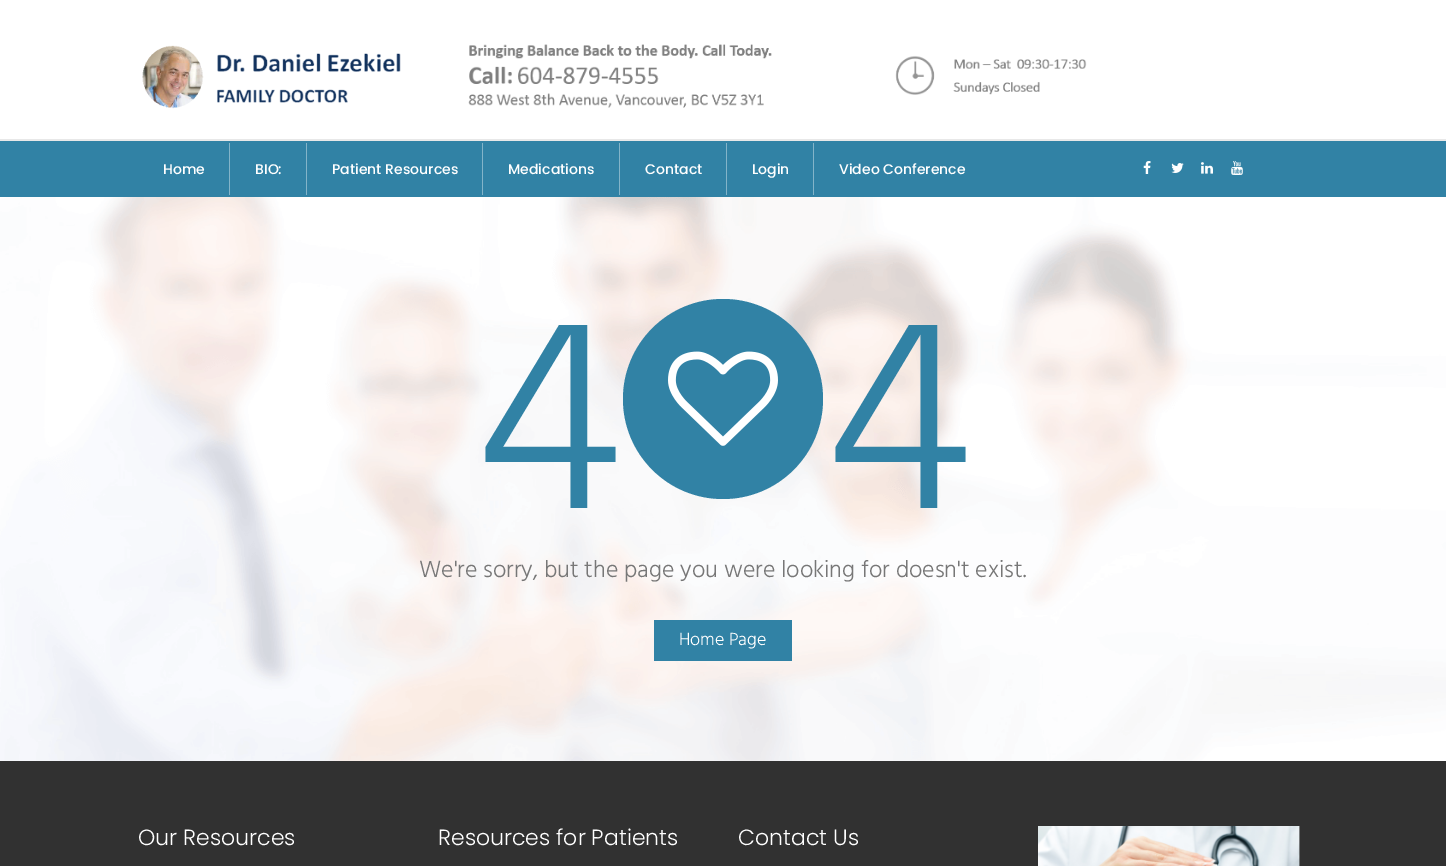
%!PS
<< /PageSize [1446 866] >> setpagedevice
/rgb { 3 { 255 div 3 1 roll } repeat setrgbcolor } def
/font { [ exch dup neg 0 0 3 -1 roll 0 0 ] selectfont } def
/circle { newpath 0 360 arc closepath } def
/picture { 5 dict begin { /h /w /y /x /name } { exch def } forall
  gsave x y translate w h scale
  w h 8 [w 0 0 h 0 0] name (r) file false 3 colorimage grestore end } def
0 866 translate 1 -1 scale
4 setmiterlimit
255 255 255 rgb
0 0 1446 866 rectfill
232 232 232 rgb
0 139 1446 2 rectfill
(img/1.rgb) 142 45 259 64 picture
(img/2.rgb) 468 44 619 64 picture
[
  [0 141 1446 56 49 130 165]
  [229 143 1 52 131 180 201]
  [306 143 1 52 131 180 201]
  [482 143 1 52 131 180 201]
  [619 143 1 52 131 180 201]
  [726 143 1 52 131 180 201]
  [813 143 1 52 131 180 201]
] { aload pop rgb rectfill } forall
(img/3.rgb) 1143 161 8 13 picture
(img/4.rgb) 1171 163 13 10 picture
(img/5.rgb) 1201 162 12 12 picture
(img/6.rgb) 1231 161 12 14 picture
(img/7.rgb) 0 197 1446 564 picture
49 130 165 rgb
723 399 100 circle fill
(img/8.rgb) 668 351 110 95 picture
654 620 138 41 rectfill
49 49 49 rgb
0 761 1446 105 rectfill
(img/9.rgb) 1038 826 262 40 picture
/Poppins-Medium 14 font
255 255 255 rgb
[
  [(Home) 163 174]
  [(BIO:) 255 174]
  [(Patient Resources) 332 174]
  [(Medications) 508 174]
  [(Contact) 645 174]
  [(Login) 752 174]
  [(Video Conference) 839 174]
] { aload pop moveto show } forall
/Hind-Light 280 font
49 130 165 rgb
473 508 moveto (4) show
823 508 moveto (4) show
/Hind-Light 24 font
119 119 119 rgb
419 577 moveto (We're sorry, but the page you were looking for doesn't exist.) show
/Hind-Light 18 font
255 255 255 rgb
679 645 moveto (Home Page) show
/Poppins-Light 22 font
[
  [(Our Resources) 138 845]
  [(Resources for Patients) 438 845]
  [(Contact Us) 738 845]
] { aload pop moveto show } forall
showpage
